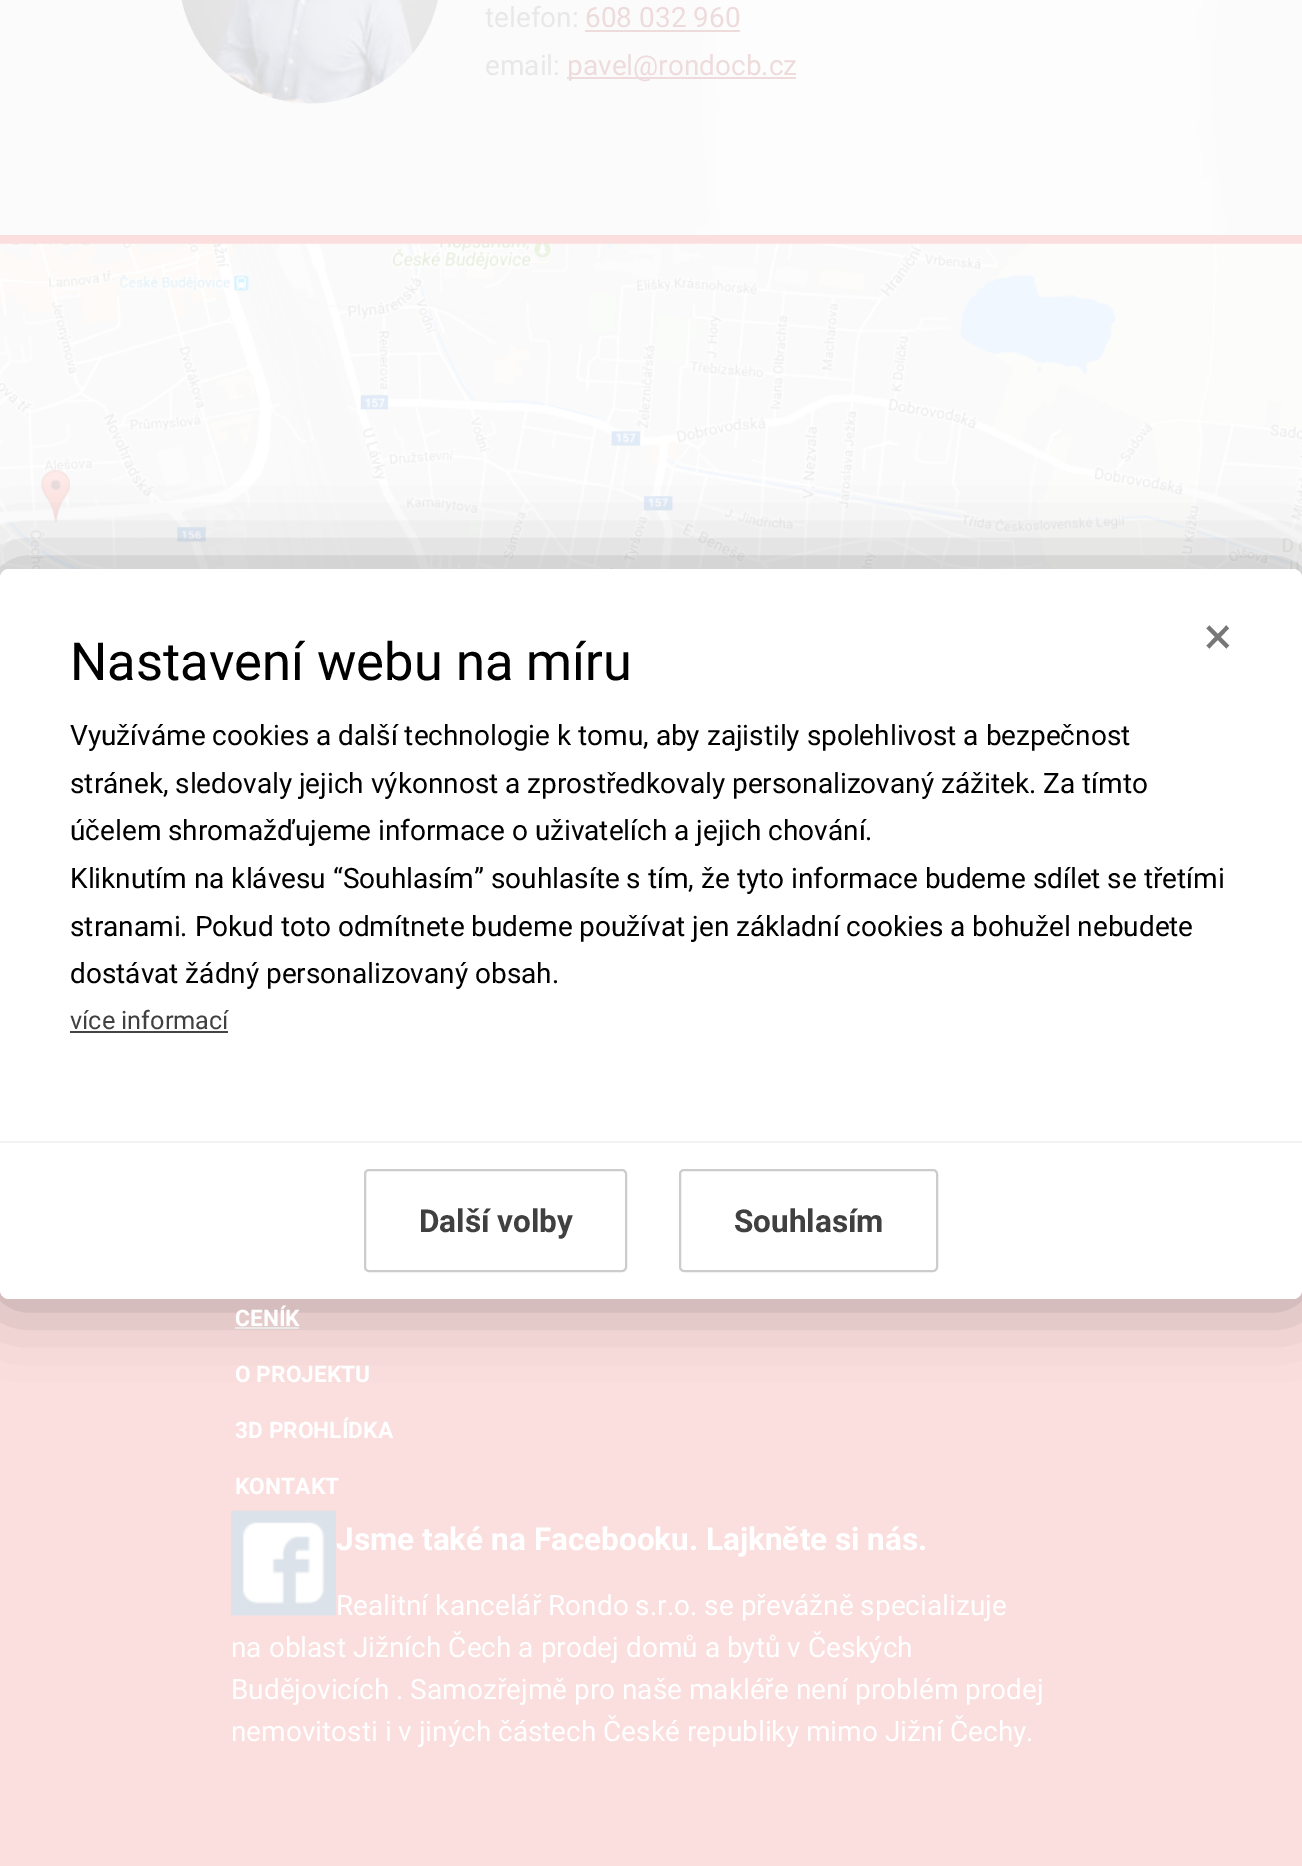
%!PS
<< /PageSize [1302 1866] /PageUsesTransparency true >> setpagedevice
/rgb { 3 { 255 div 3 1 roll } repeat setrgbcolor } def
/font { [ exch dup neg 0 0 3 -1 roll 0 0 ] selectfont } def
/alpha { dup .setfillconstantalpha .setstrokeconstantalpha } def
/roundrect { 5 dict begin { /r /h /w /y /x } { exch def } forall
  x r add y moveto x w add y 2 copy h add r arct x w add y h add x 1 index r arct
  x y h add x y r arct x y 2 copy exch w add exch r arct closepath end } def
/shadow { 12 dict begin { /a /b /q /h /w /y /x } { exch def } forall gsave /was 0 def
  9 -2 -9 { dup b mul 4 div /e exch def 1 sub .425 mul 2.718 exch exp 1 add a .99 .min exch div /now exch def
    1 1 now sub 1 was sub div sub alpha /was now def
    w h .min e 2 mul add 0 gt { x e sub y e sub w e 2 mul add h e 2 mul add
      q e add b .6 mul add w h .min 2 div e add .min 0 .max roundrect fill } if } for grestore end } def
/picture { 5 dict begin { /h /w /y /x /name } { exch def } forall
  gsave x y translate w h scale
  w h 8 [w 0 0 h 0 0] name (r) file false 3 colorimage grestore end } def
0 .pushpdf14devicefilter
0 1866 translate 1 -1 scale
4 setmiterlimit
255 255 255 rgb
0 0 1302 1866 rectfill
(img/1.rgb) 0 0 1302 235 picture
(img/2.rgb) 181 0 257 104 picture
[
  [585 30 155 2 238 219 220]
  [567 77 229 2 238 219 220]
  [0 235 1302 1631 251 222 222]
] { aload pop rgb rectfill } forall
(img/3.rgb) 0 243 1302 335 picture
255 255 255 rgb
235 1327 64 2 rectfill
(img/4.rgb) 231 1510 105 106 picture
0 0 0 rgb
-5 564 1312 740 14 35 0.3 shadow
255 255 255 rgb
0 569 1302 730 9 roundrect fill
68 68 68 rgb
70 1031 158 2 rectfill
242 242 242 rgb
0 1141 1302 2 rectfill
204 204 204 rgb
2 setlinewidth
365 1170 261 101 4 roundrect stroke
680 1170 257 101 4 roundrect stroke
/Roboto-Regular 28 font
232 232 232 rgb
485 27 moveto (telefon:) show
238 219 220 rgb
585 27 moveto (608 032 960) show
232 232 232 rgb
485 75 moveto (email:) show
238 219 220 rgb
567 75 moveto (pavel@rondocb.cz) show
/Roboto-Bold 22.75 font
255 255 255 rgb
[
  [(CENÍK) 235 1326]
  [(O PROJEKTU) 235 1382]
  [(3D PROHLÍDKA) 235 1438]
  [(KONTAKT) 235 1494]
] { aload pop moveto show } forall
/Roboto-Bold 31.5 font
336 1550 moveto (Jsme také na Facebooku. Lajkněte si nás.) show
/Roboto-Regular 28 font
[
  [(Realitní kancelář Rondo s.r.o. se převážně specializuje) 336 1615]
  [(na oblast Jižních Čech a prodej domů a bytů v Českých) 231 1657]
  [(Budějovicích . Samozřejmě pro naše makléře není problém prodej) 231 1699]
  [(nemovitosti i v jiných částech České republiky mimo Jižní Čechy.) 231 1741]
] { aload pop moveto show } forall
/Roboto-Regular 52.5 font
119 119 119 rgb
1204 654 moveto (×) show
0 0 0 rgb
70 680 moveto (Nastavení webu na míru) show
/Roboto-Regular 28 font
[
  [(Využíváme cookies a další technologie k tomu, aby zajistily spolehlivost a bezpečnost) 70 745]
  [(stránek, sledovaly jejich výkonnost a zprostředkovaly personalizovaný zážitek. Za tímto) 70 793]
  [(účelem shromažďujeme informace o uživatelích a jejich chování.) 70 840]
  [(Kliknutím na klávesu “Souhlasím” souhlasíte s tím, že tyto informace budeme sdílet se třetími) 70 888]
  [(stranami. Pokud toto odmítnete budeme používat jen základní cookies a bohužel nebudete) 70 936]
  [(dostávat žádný personalizovaný obsah.) 70 983]
] { aload pop moveto show } forall
/Roboto-Regular 25.25 font
64 64 64 rgb
70 1029 moveto (více informací) show
/Roboto-Bold 31.5 font
419 1232 moveto (Další volby) show
734 1232 moveto (Souhlasím) show
.poppdf14devicefilter showpage
